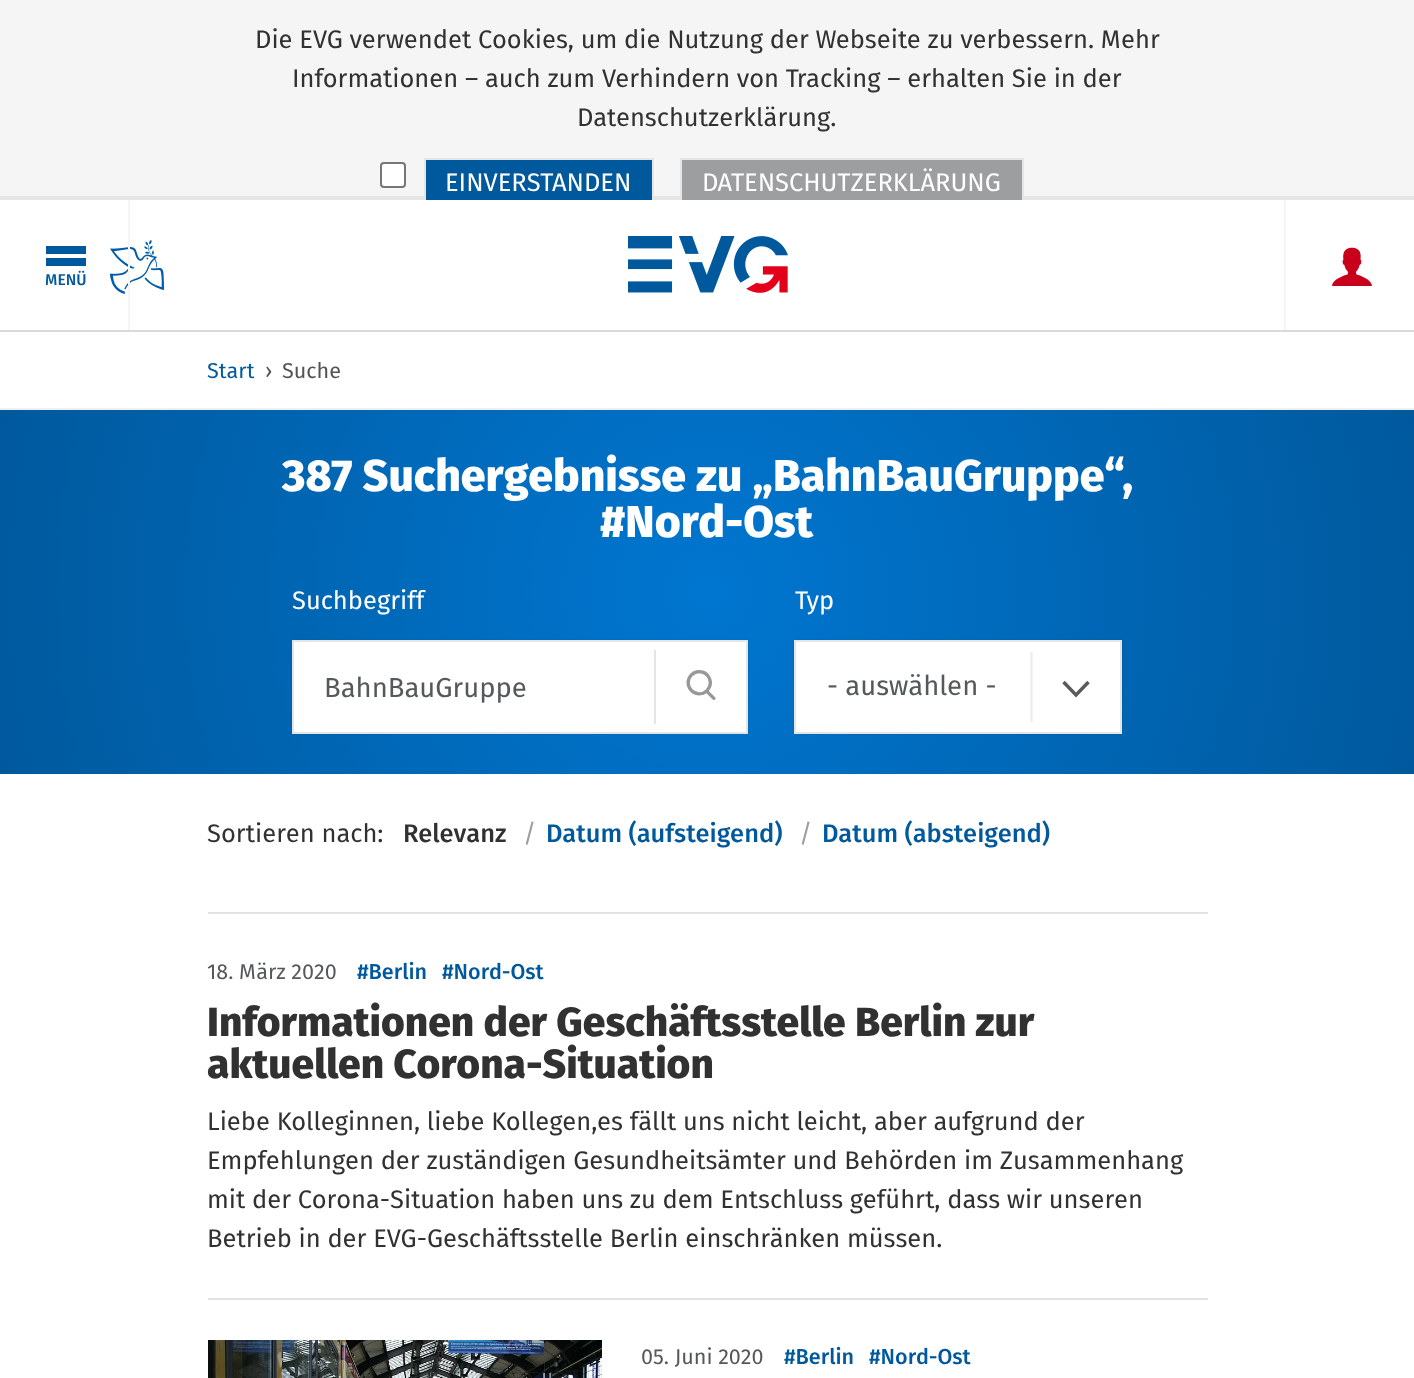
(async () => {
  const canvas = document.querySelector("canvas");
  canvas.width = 1414;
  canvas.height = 1378;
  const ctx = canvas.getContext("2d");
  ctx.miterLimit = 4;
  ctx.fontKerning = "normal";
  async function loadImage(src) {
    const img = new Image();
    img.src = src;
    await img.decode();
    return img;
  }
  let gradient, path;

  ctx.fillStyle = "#ffffff";
  ctx.fillRect(0, 0, 1414, 1378);
  ctx.fillStyle = "#f5f5f5";
  ctx.fillRect(0, 0, 1414, 196);
  ctx.fillStyle = "#e5e5e5";
  ctx.fillRect(0, 196, 1414, 4);
  ctx.fillStyle = "#ffffff";
  ctx.beginPath();
  ctx.roundRect(381, 163, 24, 24, 3);
  ctx.fill();
  ctx.strokeStyle = "#767676";
  ctx.lineWidth = 2;
  ctx.stroke();
  ctx.fillStyle = "#00599d";
  ctx.fillRect(426, 160, 226, 40);
  ctx.strokeStyle = "#e5e5e5";
  ctx.strokeRect(425, 159, 228, 48);
  ctx.fillStyle = "#9c9e9f";
  ctx.fillRect(682, 160, 340, 40);
  ctx.strokeRect(681, 159, 342, 48);
  ctx.fillStyle = "#d9d9d9";
  ctx.fillRect(0, 330, 1414, 2);
  ctx.fillStyle = "#ffffff";
  ctx.fillRect(424, 200, 600, 8);
  ctx.drawImage(await loadImage("img/2.png"), 110, 240, 54, 54);
  for (const [x, y, w, h, color] of [
    [128, 200, 2, 130, "#f5f5f5"],
    [46, 246, 40, 8, "#00599d"],
    [46, 258, 40, 8, "#00599d"],
    [1284, 200, 2, 130, "#f5f5f5"],
  ]) {
    ctx.fillStyle = color;
    ctx.fillRect(x, y, w, h);
  }
  ctx.drawImage(await loadImage("img/1.png"), 1332, 247, 40, 39);
  ctx.drawImage(await loadImage("img/3.png"), 628, 236, 160, 57);
  ctx.fillStyle = "#f0f0f1";
  ctx.fillRect(0, 408, 1414, 2);
  gradient = ctx.createRadialGradient(707, 592, 0, 707, 592, 730);
  gradient.addColorStop(0, "#0076d0");
  gradient.addColorStop(1, "#00599d");
  ctx.fillStyle = gradient;
  ctx.fillRect(0, 410, 1414, 364);
  ctx.fillStyle = "rgba(0, 0, 0, 0.1)";
  ctx.filter = "blur(1px)";
  ctx.beginPath();
  ctx.rect(292, 640, 456, 94);
  ctx.fill();
  ctx.filter = "none";
  ctx.fillStyle = "#ffffff";
  ctx.beginPath();
  ctx.rect(293, 641, 454, 92);
  ctx.fill();
  ctx.stroke();
  ctx.fillStyle = "#e5e5e5";
  ctx.fillRect(654, 650, 2, 74);
  ctx.drawImage(await loadImage("img/4.png"), 686, 670, 30, 30);
  ctx.fillStyle = "rgba(0, 0, 0, 0.1)";
  ctx.filter = "blur(1px)";
  ctx.beginPath();
  ctx.rect(794, 640, 328, 94);
  ctx.fill();
  ctx.filter = "none";
  ctx.fillStyle = "#ffffff";
  ctx.fillRect(796, 642, 324, 90);
  ctx.save();
  ctx.beginPath();
  ctx.rect(1030, 652, 60, 70);
  ctx.clip();
  path = new Path2D("M1031.5 652V722.5");
  ctx.strokeStyle = "#ebecec";
  ctx.lineWidth = 2.1;
  ctx.stroke(path);
  ctx.restore();
  path = new Path2D("M1063.5 682L1076 695L1088.5 682");
  ctx.strokeStyle = "#5a5a5a";
  ctx.lineWidth = 3.4;
  ctx.stroke(path);
  ctx.strokeStyle = "#e5e5e5";
  ctx.lineWidth = 2;
  ctx.strokeRect(795, 641, 326, 92);
  ctx.fillStyle = "#e1e2e2";
  ctx.fillRect(208, 912, 1000, 2);
  ctx.fillRect(208, 1298, 1000, 2);
  ctx.drawImage(await loadImage("img/5.png"), 208, 1340, 394, 38);
  ctx.font = "26px Fira Sans";
  ctx.fillStyle = "#313131";
  for (const [text, x, y] of [
    ["Die EVG verwendet Cookies, um die Nutzung der Webseite zu verbessern. Mehr", 255, 48],
    ["Informationen – auch zum Verhindern von Tracking – erhalten Sie in der", 292, 87],
    ["Datenschutzerklärung.", 577, 126],
  ]) {
    ctx.fillText(text, x, y);
  }
  ctx.fillStyle = "#ffffff";
  ctx.fillText("EINVERSTANDEN", 445, 191);
  ctx.fillText("DATENSCHUTZERKLÄRUNG", 702, 191);
  ctx.save();
  ctx.beginPath();
  ctx.rect(46, 246, 40, 40);
  ctx.clip();
  ctx.font = "500 16px Fira Sans";
  ctx.fillStyle = "#00599d";
  ctx.fillText("MENÜ", 45, 285);
  ctx.restore();
  ctx.font = "22px Fira Sans";
  ctx.fillStyle = "#00599d";
  ctx.fillText("Start", 207, 378);
  ctx.fillStyle = "#535353";
  ctx.fillText("›", 265, 378);
  ctx.fillText("Suche", 282, 378);
  ctx.font = "800 46px Fira Sans";
  ctx.fillStyle = "#ffffff";
  ctx.fillText("387 Suchergebnisse zu „BahnBauGruppe“,", 282, 491);
  ctx.fillText("#Nord-Ost", 600, 537);
  ctx.font = "26px Fira Sans";
  ctx.fillText("Suchbegriff", 292, 609);
  ctx.font = "28px Fira Sans";
  ctx.fillStyle = "#55595c";
  ctx.fillText("BahnBauGruppe", 324, 697);
  ctx.font = "26px Fira Sans";
  ctx.fillStyle = "#ffffff";
  ctx.fillText("Typ", 795, 609);
  ctx.font = "28px Fira Sans";
  ctx.fillStyle = "#55595c";
  ctx.fillText("- auswählen -", 827, 695);
  ctx.font = "26px Fira Sans";
  ctx.fillStyle = "#313131";
  ctx.fillText("Sortieren nach:", 207, 842);
  ctx.font = "500 26px Fira Sans";
  ctx.fillText("Relevanz", 403, 842);
  ctx.font = "26px Fira Sans";
  ctx.fillStyle = "#9c9e9f";
  ctx.fillText("/", 523, 842);
  ctx.font = "500 26px Fira Sans";
  ctx.fillStyle = "#00599d";
  ctx.fillText("Datum (aufsteigend)", 546, 842);
  ctx.font = "26px Fira Sans";
  ctx.fillStyle = "#9c9e9f";
  ctx.fillText("/", 799, 842);
  ctx.font = "500 26px Fira Sans";
  ctx.fillStyle = "#00599d";
  ctx.fillText("Datum (absteigend)", 822, 842);
  ctx.font = "22px Fira Sans";
  ctx.fillStyle = "#55595c";
  ctx.fillText("18. März 2020", 207, 979);
  ctx.font = "500 22px Fira Sans";
  ctx.fillStyle = "#00599d";
  ctx.fillText("#Berlin", 357, 979);
  ctx.fillText("#Nord-Ost", 442, 979);
  ctx.font = "800 42px Fira Sans";
  ctx.fillStyle = "#313131";
  ctx.fillText("Informationen der Geschäftsstelle Berlin zur", 207, 1036);
  ctx.fillText("aktuellen Corona-Situation", 207, 1078);
  ctx.font = "26px Fira Sans";
  for (const [text, x, y] of [
    ["Liebe Kolleginnen, liebe Kollegen,es fällt uns nicht leicht, aber aufgrund der", 207, 1130],
    ["Empfehlungen der zuständigen Gesundheitsämter und Behörden im Zusammenhang", 207, 1169],
    ["mit der Corona-Situation haben uns zu dem Entschluss geführt, dass wir unseren", 207, 1208],
    ["Betrieb in der EVG-Geschäftsstelle Berlin einschränken müssen.", 207, 1247],
  ]) {
    ctx.fillText(text, x, y);
  }
  ctx.font = "22px Fira Sans";
  ctx.fillStyle = "#55595c";
  ctx.fillText("05. Juni 2020", 641, 1364);
  ctx.font = "500 22px Fira Sans";
  ctx.fillStyle = "#00599d";
  ctx.fillText("#Berlin", 784, 1364);
  ctx.fillText("#Nord-Ost", 869, 1364);
})();
